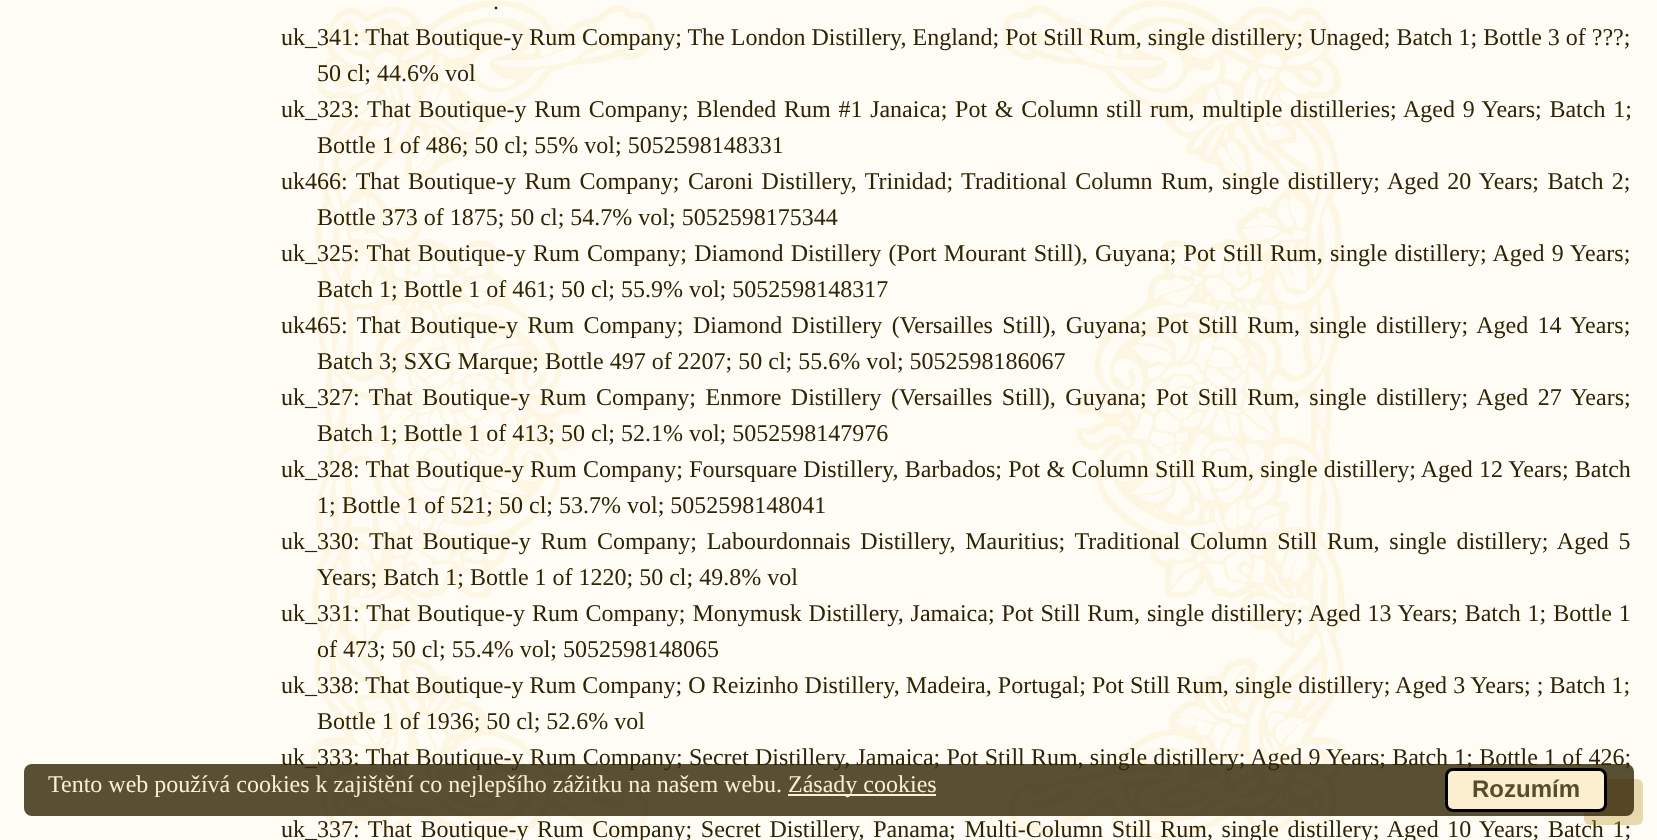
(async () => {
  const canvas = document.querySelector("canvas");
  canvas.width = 1657;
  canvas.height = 840;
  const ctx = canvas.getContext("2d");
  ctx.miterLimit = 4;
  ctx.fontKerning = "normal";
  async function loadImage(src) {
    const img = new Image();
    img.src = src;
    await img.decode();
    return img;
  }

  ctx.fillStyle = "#fefcf5";
  ctx.fillRect(0, 0, 1657, 840);
  ctx.drawImage(await loadImage("img/1.png"), 311, 0, 1036, 840);
  ctx.font = "24px Liberation Serif";
  ctx.fillStyle = "#302303";
  for (const [text, x, y] of [
    [".", 493, 9],
    ["uk_341: That Boutique-y Rum Company; The London Distillery, England; Pot Still Rum, single distillery; Unaged; Batch 1; Bottle 3 of ???;", 281, 45],
    ["50 cl; 44.6% vol", 317, 81],
    ["uk_323", 281, 117],
  ]) {
    ctx.fillText(text, x, y);
  }
  ctx.wordSpacing = "1.7px";
  ctx.fillText(": That Boutique-y Rum Company; Blended Rum #1 Janaica; Pot & Column still rum, multiple distilleries; Aged 9 Years; Batch 1;", 353, 117);
  ctx.wordSpacing = "0px";
  ctx.fillText("Bottle 1 of 486; 50 cl; 55% vol; 5052598148331", 317, 153);
  ctx.fillText("uk466", 281, 189);
  ctx.wordSpacing = "2.4px";
  ctx.fillText(": That Boutique-y Rum Company; Caroni Distillery, Trinidad; Traditional Column Rum, single distillery; Aged 20 Years; Batch 2;", 341, 189);
  ctx.wordSpacing = "0px";
  ctx.fillText("Bottle 373 of 1875; 50 cl; 54.7% vol; 5052598175344", 317, 225);
  ctx.fillText("uk_325", 281, 261);
  ctx.wordSpacing = "1.25px";
  ctx.fillText(": That Boutique-y Rum Company; Diamond Distillery (Port Mourant Still), Guyana; Pot Still Rum, single distillery; Aged 9 Years;", 353, 261);
  ctx.wordSpacing = "0px";
  ctx.fillText("Batch 1; Bottle 1 of 461; 50 cl; 55.9% vol; 5052598148317", 317, 297);
  ctx.fillText("uk465", 281, 333);
  ctx.wordSpacing = "3.4px";
  ctx.fillText(": That Boutique-y Rum Company; Diamond Distillery (Versailles Still), Guyana; Pot Still Rum, single distillery; Aged 14 Years;", 341, 333);
  ctx.wordSpacing = "0px";
  ctx.fillText("Batch 3; SXG Marque; Bottle 497 of 2207; 50 cl; 55.6% vol; 5052598186067", 317, 369);
  ctx.fillText("uk_327", 281, 405);
  ctx.wordSpacing = "3.5px";
  ctx.fillText(": That Boutique-y Rum Company; Enmore Distillery (Versailles Still), Guyana; Pot Still Rum, single distillery; Aged 27 Years;", 353, 405);
  ctx.wordSpacing = "0px";
  ctx.fillText("Batch 1; Bottle 1 of 413; 50 cl; 52.1% vol; 5052598147976", 317, 441);
  ctx.fillText("uk_328", 281, 477);
  ctx.wordSpacing = "0.25px";
  ctx.fillText(": That Boutique-y Rum Company; Foursquare Distillery, Barbados; Pot & Column Still Rum, single distillery; Aged 12 Years; Batch", 353, 477);
  ctx.wordSpacing = "0px";
  ctx.fillText("1; Bottle 1 of 521; 50 cl; 53.7% vol; 5052598148041", 317, 513);
  ctx.fillText("uk_330", 281, 549);
  ctx.wordSpacing = "3.75px";
  ctx.fillText(": That Boutique-y Rum Company; Labourdonnais Distillery, Mauritius; Traditional Column Still Rum, single distillery; Aged 5", 353, 549);
  ctx.wordSpacing = "0px";
  ctx.fillText("Years; Batch 1; Bottle 1 of 1220; 50 cl; 49.8% vol", 317, 585);
  ctx.fillText("uk_331", 281, 621);
  ctx.wordSpacing = "0.9px";
  ctx.fillText(": That Boutique-y Rum Company; Monymusk Distillery, Jamaica; Pot Still Rum, single distillery; Aged 13 Years; Batch 1; Bottle 1", 353, 621);
  ctx.wordSpacing = "0px";
  ctx.fillText("of 473; 50 cl; 55.4% vol; 5052598148065", 317, 657);
  ctx.fillText("uk_338", 281, 693);
  ctx.wordSpacing = "0.1px";
  ctx.fillText(": That Boutique-y Rum Company; O Reizinho Distillery, Madeira, Portugal; Pot Still Rum, single distillery; Aged 3 Years; ; Batch 1;", 353, 693);
  ctx.wordSpacing = "0px";
  ctx.fillText("Bottle 1 of 1936; 50 cl; 52.6% vol", 317, 729);
  ctx.fillText("uk_333", 281, 765);
  ctx.wordSpacing = "0.2px";
  ctx.fillText(": That Boutique-y Rum Company; Secret Distillery, Jamaica; Pot Still Rum, single distillery; Aged 9 Years; Batch 1; Bottle 1 of 426;", 353, 765);
  ctx.wordSpacing = "0px";
  ctx.fillText("uk_337", 281, 837);
  ctx.wordSpacing = "2.6px";
  ctx.fillText(": That Boutique-y Rum Company; Secret Distillery, Panama; Multi-Column Still Rum, single distillery; Aged 10 Years; Batch 1;", 353, 837);
  ctx.fillStyle = "rgba(183, 134, 11, 0.3)";
  ctx.beginPath();
  ctx.roundRect(1584, 779, 59, 46, 6);
  ctx.fill();
  ctx.fillStyle = "rgba(48, 35, 3, 0.8)";
  ctx.beginPath();
  ctx.roundRect(24, 764, 1610, 52, 8);
  ctx.fill();
  ctx.wordSpacing = "0px";
  ctx.fillStyle = "#fcefcf";
  ctx.fillText("Tento web používá cookies k zajištění co nejlepšího zážitku na našem webu.", 48, 792);
  ctx.fillRect(788, 794, 148, 2);
  ctx.fillText("Zásady cookies", 788, 792);
  ctx.beginPath();
  ctx.roundRect(1446.5, 769.5, 159, 41, 6.5);
  ctx.fill();
  ctx.strokeStyle = "#000000";
  ctx.lineWidth = 3;
  ctx.stroke();
  ctx.font = "bold 24px Liberation Sans";
  ctx.fillStyle = "#594c2c";
  ctx.fillText("Rozumím", 1472, 797);
})();
